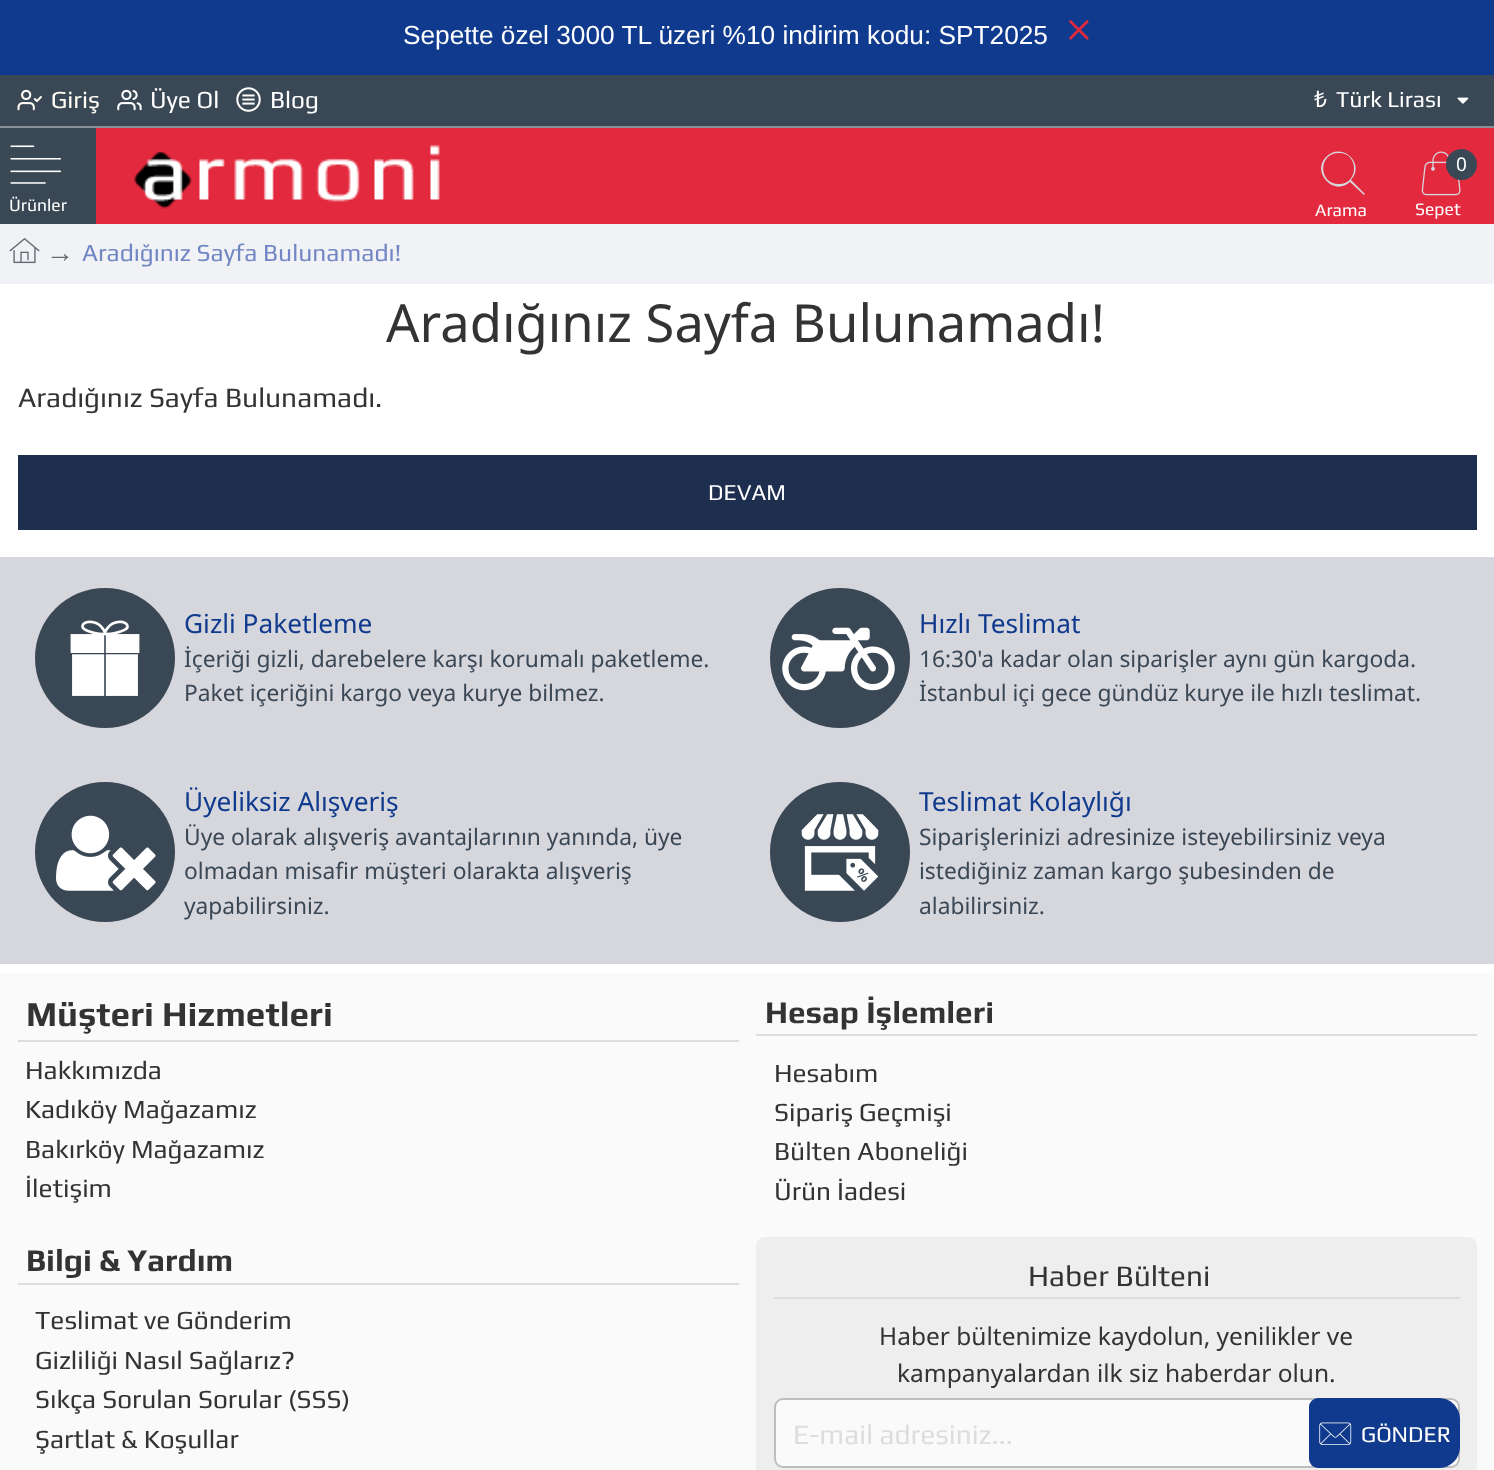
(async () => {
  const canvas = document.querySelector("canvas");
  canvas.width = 1494;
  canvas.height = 1470;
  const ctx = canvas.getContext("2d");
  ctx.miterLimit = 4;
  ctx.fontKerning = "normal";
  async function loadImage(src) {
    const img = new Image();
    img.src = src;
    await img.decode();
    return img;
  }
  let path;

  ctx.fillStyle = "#ffffff";
  ctx.fillRect(0, 0, 1494, 1470);
  ctx.fillStyle = "#0f3a8d";
  ctx.fillRect(0, 0, 1494, 75);
  ctx.drawImage(await loadImage("img/1.png"), 1069, 20, 20, 20);
  ctx.fillStyle = "#3a4754";
  ctx.fillRect(0, 75, 1494, 51);
  ctx.fillStyle = "#8b9198";
  ctx.fillRect(0, 126, 1494, 2);
  ctx.drawImage(await loadImage("img/2.png"), 17, 89, 25, 22);
  ctx.drawImage(await loadImage("img/3.png"), 117, 89, 25, 22);
  ctx.drawImage(await loadImage("img/4.png"), 236, 87, 25, 25);
  ctx.drawImage(await loadImage("img/5.png"), 1457, 97, 12, 7);
  ctx.fillStyle = "#e2293d";
  ctx.fillRect(96, 128, 1398, 96);
  ctx.drawImage(await loadImage("img/6.png"), 134, 144, 306, 65);
  ctx.fillStyle = "#3a4754";
  ctx.fillRect(0, 128, 96, 96);
  ctx.drawImage(await loadImage("img/7.png"), 10, 145, 52, 39);
  ctx.fillStyle = "#d6d6dd";
  path = new Path2D("M1350 182L1364 195L1365 194L1351 180C1366 164 1342 141 1326 157C1311 172 1334 197 1350 182ZM1339 153C1359 153 1359 184 1339 184C1318 184 1318 153 1339 153Z");
  ctx.fill(path);
  ctx.drawImage(await loadImage("img/8.png"), 1421, 151, 40, 45);
  ctx.fillStyle = "#3a4754";
  ctx.beginPath();
  ctx.arc(1461.5, 164.5, 15.5, 0, Math.PI * 2);
  ctx.fill();
  ctx.fillStyle = "#f0f2f5";
  ctx.fillRect(0, 224, 1494, 60);
  ctx.drawImage(await loadImage("img/9.png"), 9, 238, 31, 26);
  ctx.fillStyle = "#1e2e4e";
  ctx.fillRect(18, 455, 1459, 75);
  ctx.fillStyle = "#d6d6dd";
  ctx.fillRect(0, 557, 1494, 407);
  ctx.fillStyle = "#3a4754";
  ctx.beginPath();
  ctx.arc(105, 658, 70, 0, Math.PI * 2);
  ctx.fill();
  ctx.drawImage(await loadImage("img/10.png"), 70, 620, 70, 76);
  ctx.beginPath();
  ctx.arc(840, 658, 70, 0, Math.PI * 2);
  ctx.fill();
  ctx.drawImage(await loadImage("img/11.png"), 782, 627, 113, 64);
  ctx.beginPath();
  ctx.arc(105, 852, 70, 0, Math.PI * 2);
  ctx.fill();
  ctx.drawImage(await loadImage("img/12.png"), 56, 815, 100, 76);
  ctx.beginPath();
  ctx.arc(840, 852, 70, 0, Math.PI * 2);
  ctx.fill();
  ctx.drawImage(await loadImage("img/13.png"), 801, 814, 78, 77);
  for (const [x, y, w, h, color] of [
    [0, 973, 1494, 497, "#fafafa"],
    [18, 1040, 721, 2, "#dddddd"],
    [756, 1034, 721, 2, "#dddddd"],
    [18, 1283, 721, 2, "#dddddd"],
  ]) {
    ctx.fillStyle = color;
    ctx.fillRect(x, y, w, h);
  }
  ctx.fillStyle = "#eeeeee";
  ctx.beginPath();
  ctx.roundRect(756, 1237, 721, 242, 9);
  ctx.fill();
  ctx.fillStyle = "#dddddd";
  ctx.fillRect(774, 1297, 686, 2);
  ctx.fillStyle = "#fafafa";
  ctx.beginPath();
  ctx.roundRect(775, 1399, 684, 68, 8);
  ctx.fill();
  ctx.strokeStyle = "#bebebe";
  ctx.lineWidth = 2;
  ctx.stroke();
  ctx.fillStyle = "#0f3a8d";
  ctx.beginPath();
  ctx.roundRect(1309, 1398, 151, 70, [9, 21, 21, 9]);
  ctx.fill();
  ctx.drawImage(await loadImage("img/14.png"), 1319, 1422, 33, 23);
  ctx.font = "26.25px Liberation Sans";
  ctx.fillStyle = "#ffffff";
  ctx.fillText("Sepette özel 3000 TL üzeri %10 indirim kodu: SPT2025", 403, 44);
  ctx.font = "24.5px Play";
  ctx.fillStyle = "#fffdf5";
  ctx.fillText("Giriş", 51, 108);
  ctx.fillStyle = "#ffffff";
  ctx.fillText("Üye Ol", 150, 108);
  ctx.fillText("Blog", 270, 108);
  ctx.font = "22.75px 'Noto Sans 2'";
  ctx.fillText("₺", 1314, 107);
  ctx.font = "22.75px Play";
  ctx.fillText("Türk Lirası", 1336, 107);
  ctx.font = "17.5px Play";
  ctx.fillText("Ürünler", 9, 211);
  ctx.fillText("Arama", 1315, 216);
  ctx.font = "19px Noto Sans";
  ctx.fillText("0", 1456, 171);
  ctx.font = "17.5px Play";
  ctx.fillText("Sepet", 1415, 215);
  ctx.font = "28px Liberation Serif";
  ctx.fillStyle = "#696973";
  ctx.fillText("→", 46, 262);
  ctx.font = "24.5px Play";
  ctx.fillStyle = "#7186c3";
  ctx.fillText("Aradığınız Sayfa Bulunamadı!", 82, 261);
  ctx.font = "52.5px Noto Sans";
  ctx.fillStyle = "#333333";
  ctx.fillText("Aradığınız Sayfa Bulunamadı!", 386, 342);
  ctx.font = "28px Play";
  ctx.fillText("Aradığınız Sayfa Bulunamadı.", 18, 407);
  ctx.font = "22.75px Play";
  ctx.fillStyle = "#ffffff";
  ctx.fillText("DEVAM", 708, 500);
  ctx.font = "26.25px Noto Sans";
  ctx.fillStyle = "#0f3a8d";
  ctx.fillText("Gizli Paketleme", 184, 633);
  ctx.font = "22.75px Noto Sans";
  ctx.fillStyle = "#3a4754";
  ctx.fillText("İçeriği gizli, darebelere karşı korumalı paketleme.", 184, 667);
  ctx.fillText("Paket içeriğini kargo veya kurye bilmez.", 184, 701);
  ctx.font = "26.25px Noto Sans";
  ctx.fillStyle = "#0f3a8d";
  ctx.fillText("Hızlı Teslimat", 919, 633);
  ctx.font = "22.75px Noto Sans";
  ctx.fillStyle = "#3a4754";
  ctx.fillText("16:30'a kadar olan siparişler aynı gün kargoda.", 919, 667);
  ctx.fillText("İstanbul içi gece gündüz kurye ile hızlı teslimat.", 919, 701);
  ctx.font = "26.25px Noto Sans";
  ctx.fillStyle = "#0f3a8d";
  ctx.fillText("Üyeliksiz Alışveriş", 184, 811);
  ctx.font = "22.75px Noto Sans";
  ctx.fillStyle = "#3a4754";
  for (const [text, x, y] of [
    ["Üye olarak alışveriş avantajlarının yanında, üye", 184, 845],
    ["olmadan misafir müşteri olarakta alışveriş", 184, 879],
    ["yapabilirsiniz.", 184, 914],
  ]) {
    ctx.fillText(text, x, y);
  }
  ctx.font = "26.25px Noto Sans";
  ctx.fillStyle = "#0f3a8d";
  ctx.fillText("Teslimat Kolaylığı", 919, 811);
  ctx.font = "22.75px Noto Sans";
  ctx.fillStyle = "#3a4754";
  for (const [text, x, y] of [
    ["Siparişlerinizi adresinize isteyebilirsiniz veya", 919, 845],
    ["istediğiniz zaman kargo şubesinden de", 919, 879],
    ["alabilirsiniz.", 919, 914],
  ]) {
    ctx.fillText(text, x, y);
  }
  ctx.font = "bold 35px Play";
  ctx.fillStyle = "#333333";
  ctx.fillText("Müşteri Hizmetleri", 26, 1026);
  ctx.font = "26.25px Play";
  for (const [text, x, y] of [
    ["Hakkımızda", 25, 1079],
    ["Kadıköy Mağazamız", 25, 1118],
    ["Bakırköy Mağazamız", 25, 1158],
    ["İletişim", 25, 1197],
  ]) {
    ctx.fillText(text, x, y);
  }
  ctx.font = "bold 31.5px Play";
  ctx.fillText("Hesap İşlemleri", 765, 1023);
  ctx.font = "26.25px Play";
  for (const [text, x, y] of [
    ["Hesabım", 774, 1082],
    ["Sipariş Geçmişi", 774, 1121],
    ["Bülten Aboneliği", 774, 1160],
    ["Ürün İadesi", 774, 1200],
  ]) {
    ctx.fillText(text, x, y);
  }
  ctx.font = "bold 31.5px Play";
  ctx.fillText("Bilgi & Yardım", 26, 1271);
  ctx.font = "26.25px Play";
  for (const [text, x, y] of [
    ["Teslimat ve Gönderim", 35, 1329],
    ["Gizliliği Nasıl Sağlarız?", 35, 1369],
    ["Sıkça Sorulan Sorular (SSS)", 35, 1408],
    ["Şartlat & Koşullar", 35, 1448],
  ]) {
    ctx.fillText(text, x, y);
  }
  ctx.font = "29.75px Play";
  ctx.fillText("Haber Bülteni", 1028, 1286);
  ctx.font = "24.5px Noto Sans";
  ctx.fillText("Haber bültenimize kaydolun, yenilikler ve", 879, 1345);
  ctx.fillText("kampanyalardan ilk siz haberdar olun.", 897, 1382);
  ctx.font = "28px Play";
  ctx.fillStyle = "#dddddd";
  ctx.fillText("E-mail adresiniz...", 793, 1444);
  ctx.font = "22.75px Play";
  ctx.fillStyle = "#ffffff";
  ctx.fillText("GÖNDER", 1361, 1442);
})();
